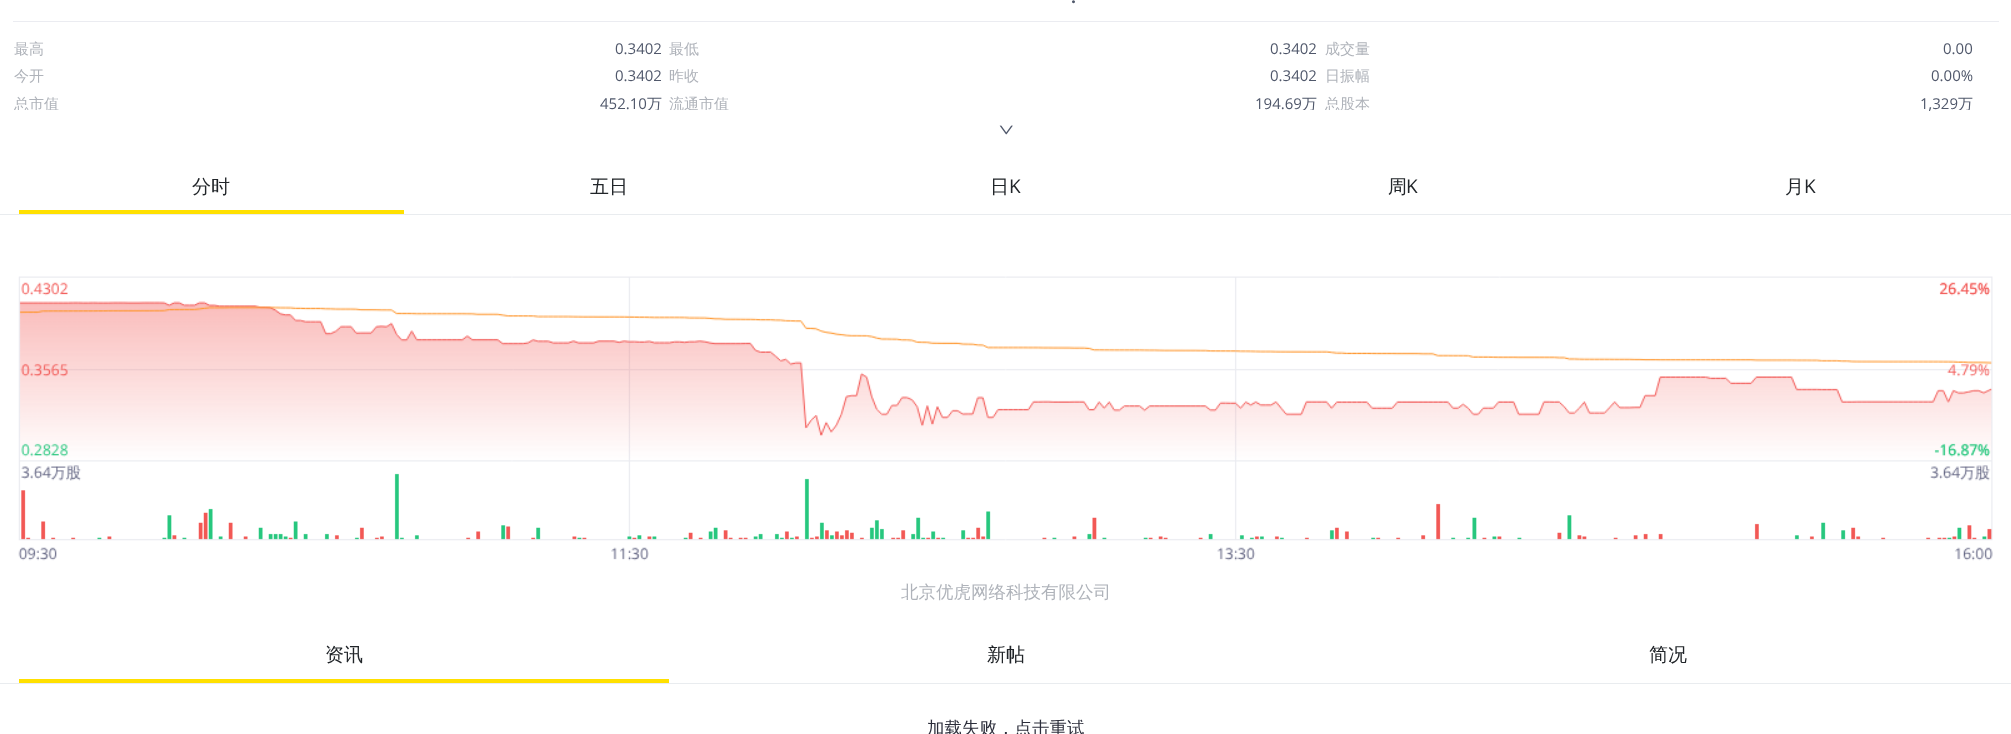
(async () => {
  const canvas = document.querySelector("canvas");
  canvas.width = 2011;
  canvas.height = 734;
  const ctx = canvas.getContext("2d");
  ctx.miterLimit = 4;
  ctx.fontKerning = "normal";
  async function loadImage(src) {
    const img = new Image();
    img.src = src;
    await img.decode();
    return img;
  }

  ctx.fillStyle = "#ffffff";
  ctx.fillRect(0, 0, 2011, 734);
  ctx.fillStyle = "#ebecf1";
  ctx.fillRect(13, 21, 1986, 1);
  ctx.drawImage(await loadImage("img/1.png"), 999, 125, 14, 10);
  ctx.fillStyle = "#e9ecef";
  ctx.fillRect(0, 214, 2011, 1);
  ctx.fillStyle = "#ffe000";
  ctx.fillRect(19, 210, 385, 4);
  ctx.drawImage(await loadImage("img/2.png"), 18, 276, 1975, 285);
  ctx.fillStyle = "#e9ecef";
  ctx.fillRect(0, 683, 2011, 1);
  ctx.fillStyle = "#ffe000";
  ctx.fillRect(19, 679, 650, 4);
  ctx.font = "bold 17.5px Open Sans";
  ctx.fillStyle = "#50586b";
  ctx.fillText(".", 1071, 3);
  ctx.font = "500 15px WenQuanYi Zen Hei";
  ctx.fillStyle = "#afb3ba";
  ctx.fillText("最高", 14, 54);
  ctx.font = "15px Open Sans";
  ctx.fillStyle = "#50586b";
  ctx.fillText("0.3402", 615, 54);
  ctx.font = "500 15px WenQuanYi Zen Hei";
  ctx.fillStyle = "#afb3ba";
  ctx.fillText("最低", 669, 54);
  ctx.font = "15px Open Sans";
  ctx.fillStyle = "#50586b";
  ctx.fillText("0.3402", 1270, 54);
  ctx.font = "500 15px WenQuanYi Zen Hei";
  ctx.fillStyle = "#afb3ba";
  ctx.fillText("成交量", 1325, 54);
  ctx.font = "15px Open Sans";
  ctx.fillStyle = "#50586b";
  ctx.fillText("0.00", 1943, 54);
  ctx.font = "500 15px WenQuanYi Zen Hei";
  ctx.fillStyle = "#afb3ba";
  ctx.fillText("今开", 14, 81);
  ctx.font = "15px Open Sans";
  ctx.fillStyle = "#50586b";
  ctx.fillText("0.3402", 615, 81);
  ctx.font = "500 15px WenQuanYi Zen Hei";
  ctx.fillStyle = "#afb3ba";
  ctx.fillText("昨收", 669, 81);
  ctx.font = "15px Open Sans";
  ctx.fillStyle = "#50586b";
  ctx.fillText("0.3402", 1270, 81);
  ctx.font = "500 15px WenQuanYi Zen Hei";
  ctx.fillStyle = "#afb3ba";
  ctx.fillText("日振幅", 1325, 81);
  ctx.font = "15px Open Sans";
  ctx.fillStyle = "#50586b";
  ctx.fillText("0.00%", 1931, 81);
  ctx.save();
  ctx.beginPath();
  ctx.rect(14, 91, 45, 19);
  ctx.clip();
  ctx.font = "500 15px WenQuanYi Zen Hei";
  ctx.fillStyle = "#afb3ba";
  ctx.fillText("总市值", 14, 109);
  ctx.restore();
  ctx.fillText("452.10", 600, 109);
  ctx.save();
  ctx.beginPath();
  ctx.rect(13, 35, 1986, 75);
  ctx.clip();
  ctx.font = "500 15px WenQuanYi Zen Hei";
  ctx.fillText("万", 647, 109);
  ctx.restore();
  ctx.save();
  ctx.beginPath();
  ctx.rect(669, 91, 60, 19);
  ctx.clip();
  ctx.font = "500 15px WenQuanYi Zen Hei";
  ctx.fillStyle = "#afb3ba";
  ctx.fillText("流通市值", 669, 109);
  ctx.restore();
  ctx.fillText("194.69", 1255, 109);
  ctx.save();
  ctx.beginPath();
  ctx.rect(13, 35, 1986, 75);
  ctx.clip();
  ctx.font = "500 15px WenQuanYi Zen Hei";
  ctx.fillText("万", 1302, 109);
  ctx.restore();
  ctx.save();
  ctx.beginPath();
  ctx.rect(1325, 91, 45, 19);
  ctx.clip();
  ctx.font = "500 15px WenQuanYi Zen Hei";
  ctx.fillStyle = "#afb3ba";
  ctx.fillText("总股本", 1325, 109);
  ctx.restore();
  ctx.fillText("1,329", 1920, 109);
  ctx.save();
  ctx.beginPath();
  ctx.rect(13, 35, 1986, 75);
  ctx.clip();
  ctx.font = "500 15px WenQuanYi Zen Hei";
  ctx.fillText("万", 1958, 109);
  ctx.restore();
  ctx.font = "500 19px WenQuanYi Zen Hei";
  ctx.fillStyle = "#212529";
  for (const [text, x, y] of [
    ["分时", 192, 193],
    ["五日", 590, 193],
    ["日", 990, 193],
  ]) {
    ctx.fillText(text, x, y);
  }
  ctx.font = "19px Open Sans";
  ctx.fillText("K", 1009, 193);
  ctx.font = "500 19px WenQuanYi Zen Hei";
  ctx.fillText("周", 1388, 193);
  ctx.font = "19px Open Sans";
  ctx.fillText("K", 1406, 193);
  ctx.font = "500 19px WenQuanYi Zen Hei";
  ctx.fillText("月", 1785, 193);
  ctx.font = "19px Open Sans";
  ctx.fillText("K", 1804, 193);
  ctx.font = "500 17.5px WenQuanYi Zen Hei";
  ctx.fillStyle = "#afb3ba";
  ctx.fillText("北京优虎网络科技有限公司", 901, 598);
  ctx.font = "500 19px WenQuanYi Zen Hei";
  ctx.fillStyle = "#212529";
  for (const [text, x, y] of [
    ["资讯", 325, 661],
    ["新帖", 987, 661],
    ["简况", 1649, 661],
  ]) {
    ctx.fillText(text, x, y);
  }
  ctx.font = "500 17.5px WenQuanYi Zen Hei";
  ctx.fillStyle = "#2c2e3b";
  ctx.fillText("加载失败，点击重试", 927, 734);
})();
